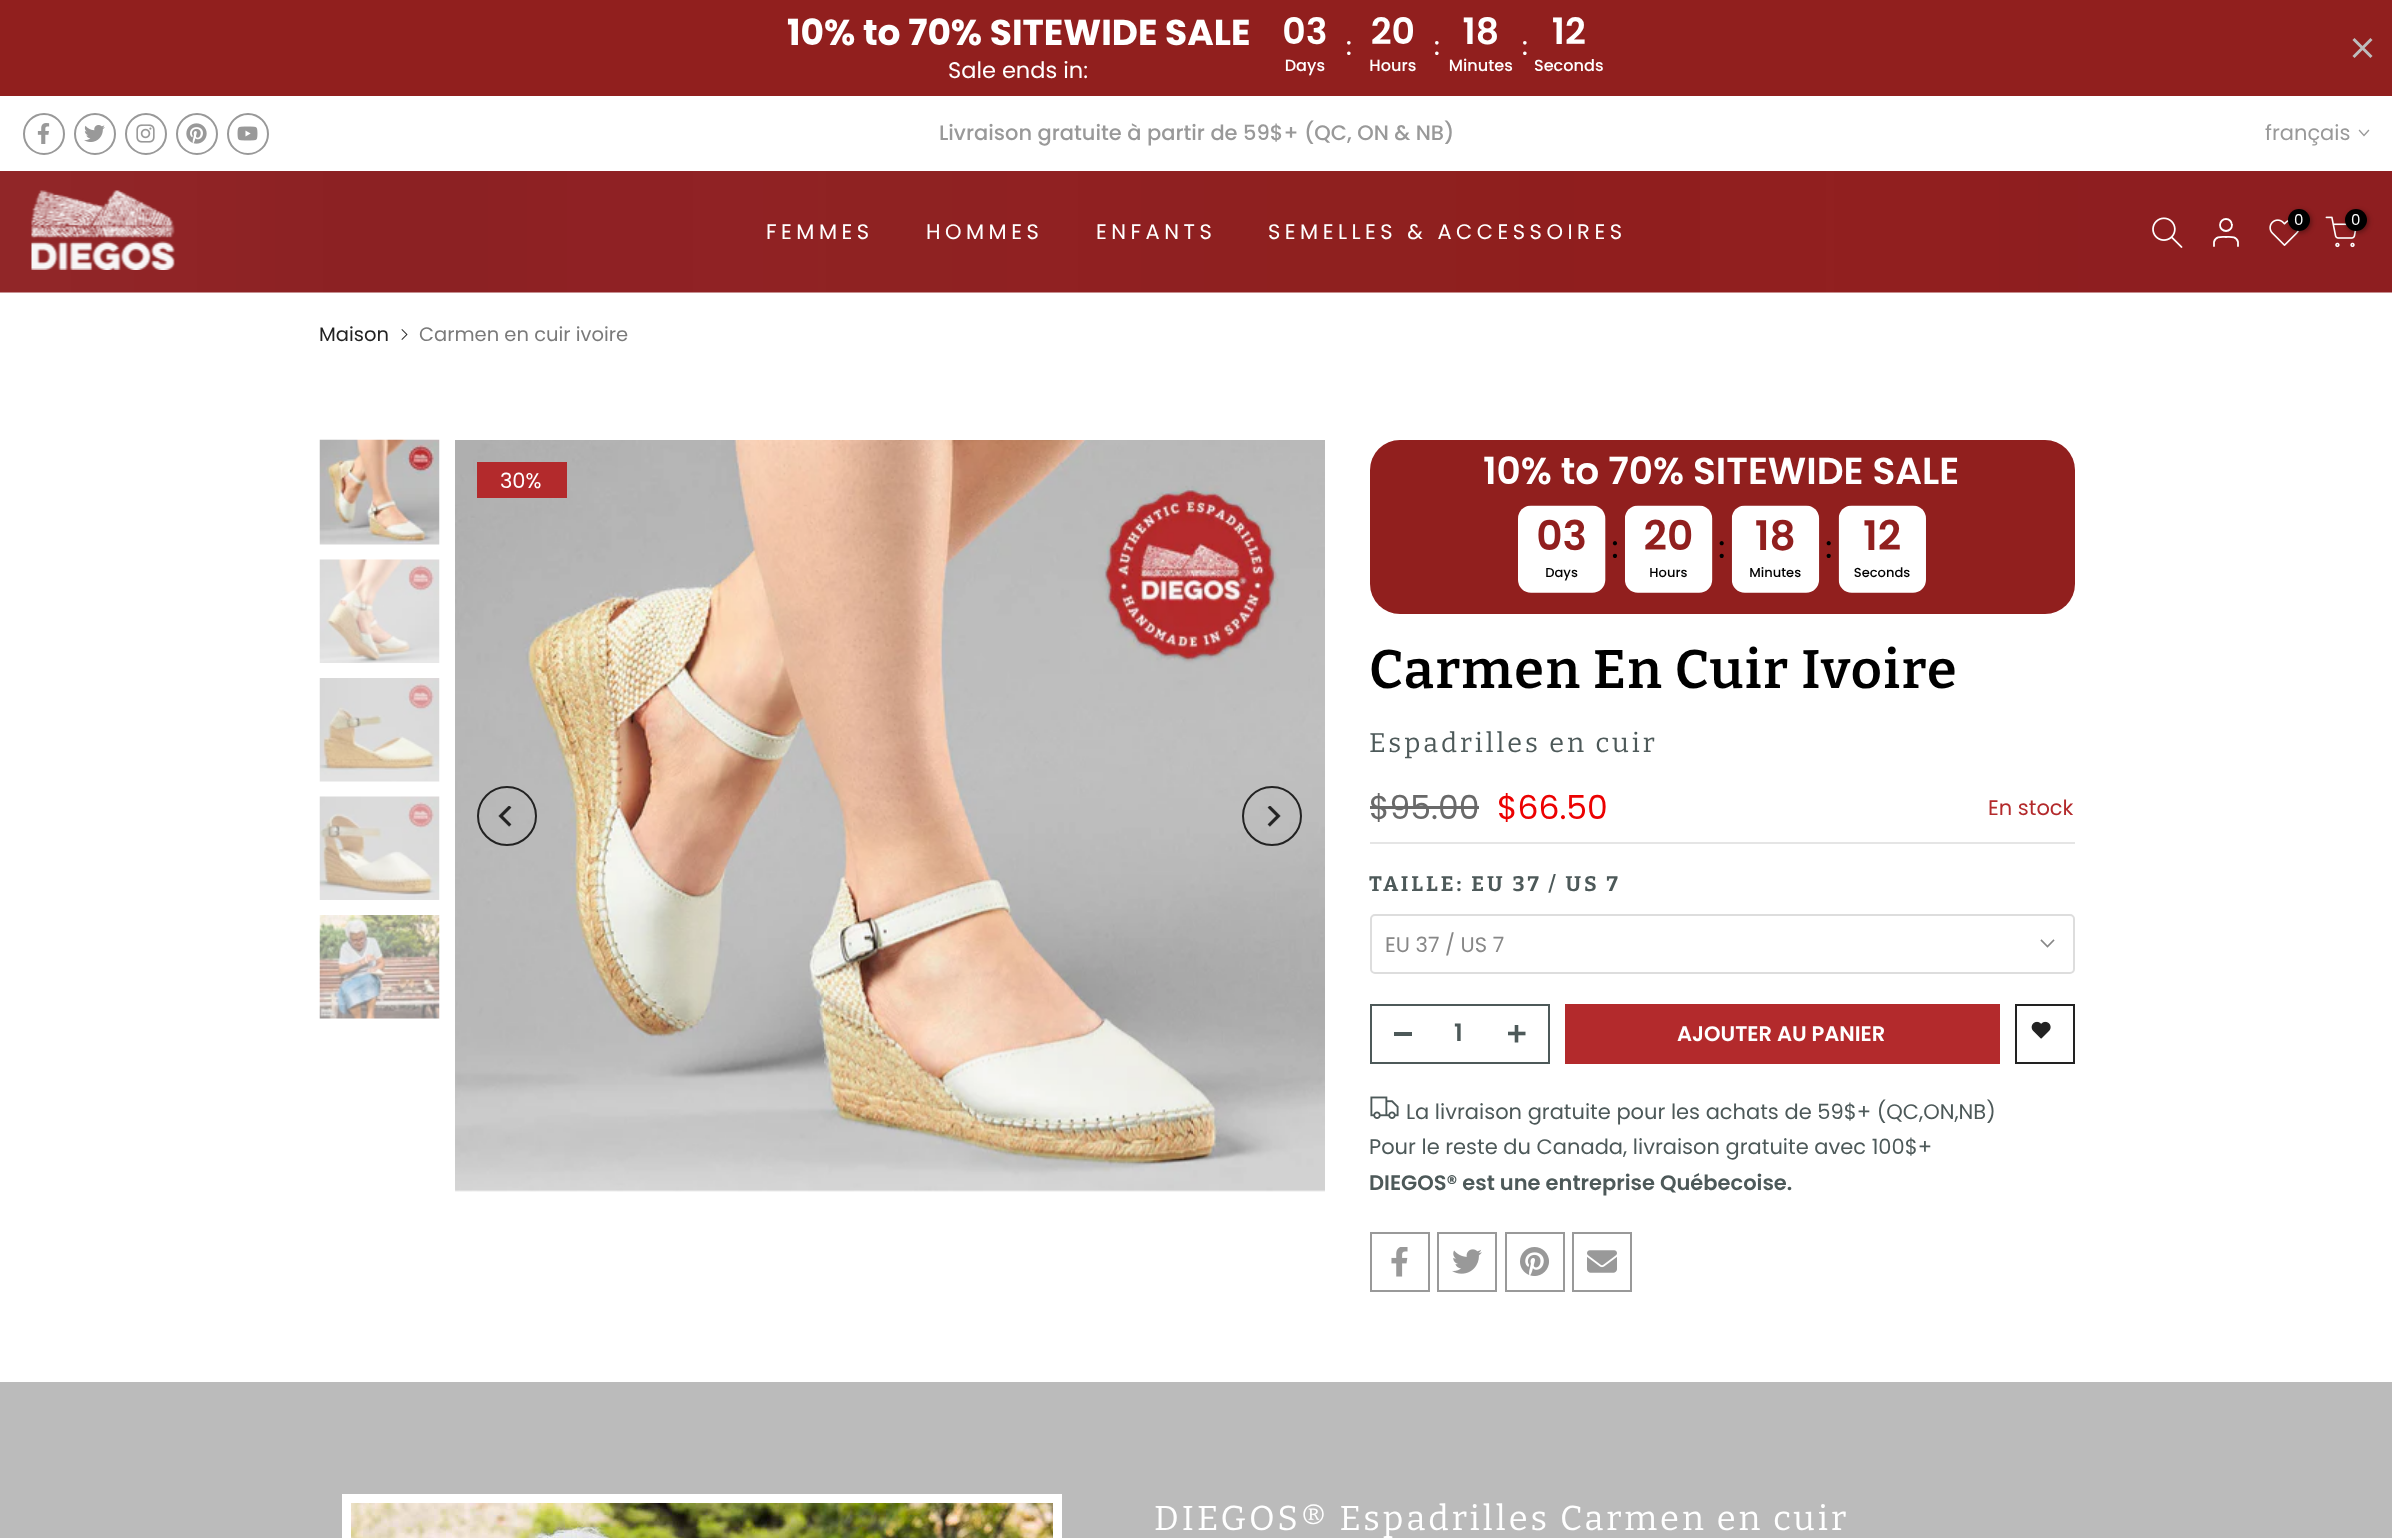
(async () => {
  const canvas = document.querySelector("canvas");
  canvas.width = 2392;
  canvas.height = 1538;
  const ctx = canvas.getContext("2d");
  ctx.miterLimit = 4;
  ctx.fontKerning = "normal";
  async function loadImage(src) {
    const img = new Image();
    img.src = src;
    await img.decode();
    return img;
  }
  let path;

  ctx.fillStyle = "#ffffff";
  ctx.fillRect(0, 0, 2392, 1538);
  ctx.fillStyle = "#911f1e";
  ctx.fillRect(0, 0, 2392, 96);
  ctx.drawImage(await loadImage("img/1.png"), 1284, 17, 319, 59);
  path = new Path2D("M2371.5 39L2353.5 57M2371.5 57L2353.5 39");
  ctx.strokeStyle = "#bdbdbd";
  ctx.lineWidth = 3;
  ctx.stroke(path);
  ctx.beginPath();
  ctx.arc(44, 134, 20, 0, Math.PI * 2);
  ctx.strokeStyle = "#999999";
  ctx.lineWidth = 2;
  ctx.stroke();
  ctx.drawImage(await loadImage("img/2.png"), 37, 123, 13, 21);
  ctx.beginPath();
  ctx.arc(95, 134, 20, 0, Math.PI * 2);
  ctx.stroke();
  ctx.drawImage(await loadImage("img/3.png"), 84, 125, 21, 17);
  ctx.beginPath();
  ctx.arc(146, 134, 20, 0, Math.PI * 2);
  ctx.stroke();
  ctx.drawImage(await loadImage("img/4.png"), 136, 124, 19, 19);
  ctx.beginPath();
  ctx.arc(197, 134, 20, 0, Math.PI * 2);
  ctx.stroke();
  ctx.drawImage(await loadImage("img/5.png"), 186, 123, 21, 21);
  ctx.beginPath();
  ctx.arc(248, 134, 20, 0, Math.PI * 2);
  ctx.stroke();
  ctx.drawImage(await loadImage("img/6.png"), 237, 126, 21, 15);
  path = new Path2D("M2368.5 130.5L2364 135.5L2359.5 130.5");
  ctx.lineWidth = 1.3;
  ctx.lineCap = "square";
  ctx.stroke(path);
  ctx.drawImage(await loadImage("img/7.png"), 0, 171, 2392, 122);
  ctx.drawImage(await loadImage("img/8.png"), 31, 190, 144, 80);
  ctx.drawImage(await loadImage("img/9.png"), 2152, 217, 31, 31);
  ctx.beginPath();
  ctx.arc(2226, 225, 6, 0, Math.PI * 2);
  ctx.strokeStyle = "#ffffff";
  ctx.lineWidth = 1.8;
  ctx.stroke();
  path = new Path2D("M2238 246V242C2236.5 236 2230.5 237 2226 237C2221.5 237 2215.5 236 2214 242V246");
  ctx.lineCap = "round";
  ctx.lineJoin = "round";
  ctx.stroke(path);
  ctx.drawImage(await loadImage("img/10.png"), 2269, 219, 31, 27);
  ctx.fillStyle = "rgba(0, 0, 0, 0.3)";
  ctx.filter = "blur(2px)";
  ctx.beginPath();
  ctx.roundRect(2289, 210, 23, 23, 11.5);
  ctx.fill();
  ctx.filter = "none";
  ctx.fillStyle = "#000000";
  ctx.beginPath();
  ctx.arc(2299, 220, 11, 0, Math.PI * 2);
  ctx.fill();
  ctx.drawImage(await loadImage("img/11.png"), 2325, 216, 32, 32);
  ctx.fillStyle = "rgba(0, 0, 0, 0.3)";
  ctx.filter = "blur(2px)";
  ctx.beginPath();
  ctx.roundRect(2346, 210, 23, 23, 11.5);
  ctx.fill();
  ctx.filter = "none";
  ctx.fillStyle = "#000000";
  ctx.beginPath();
  ctx.arc(2356, 220, 11, 0, Math.PI * 2);
  ctx.fill();
  ctx.drawImage(await loadImage("img/12.png"), 401, 329, 7, 11);
  ctx.drawImage(await loadImage("img/13.png"), 319, 439, 121, 106);
  ctx.drawImage(await loadImage("img/14.png"), 319, 559, 121, 104);
  ctx.drawImage(await loadImage("img/15.png"), 319, 678, 121, 104);
  ctx.drawImage(await loadImage("img/16.png"), 319, 796, 121, 104);
  ctx.drawImage(await loadImage("img/17.png"), 319, 915, 121, 104);
  ctx.drawImage(await loadImage("img/18.png"), 455, 440, 870, 752);
  ctx.beginPath();
  ctx.arc(507, 816, 29, 0, Math.PI * 2);
  ctx.strokeStyle = "#222222";
  ctx.lineWidth = 2;
  ctx.stroke();
  ctx.drawImage(await loadImage("img/19.png"), 498, 806, 14, 21);
  ctx.beginPath();
  ctx.arc(1272, 816, 29, 0, Math.PI * 2);
  ctx.stroke();
  ctx.drawImage(await loadImage("img/20.png"), 1267, 806, 14, 21);
  ctx.fillStyle = "#b32a2c";
  ctx.fillRect(477, 462, 90, 36);
  ctx.fillStyle = "#911f1e";
  ctx.beginPath();
  ctx.roundRect(1370, 440, 705, 174, 30);
  ctx.fill();
  ctx.drawImage(await loadImage("img/21.png"), 1518, 505, 408, 88);
  ctx.fillStyle = "#e5e5e5";
  ctx.fillRect(1370, 842, 705, 2);
  ctx.fillStyle = "#696969";
  ctx.fillRect(1370, 806, 109, 3);
  ctx.beginPath();
  ctx.roundRect(1371, 915, 703, 58, 4);
  ctx.strokeStyle = "#dddddd";
  ctx.lineJoin = "miter";
  ctx.stroke();
  path = new Path2D("M2053.5 940.5L2047.5 946.5L2041.5 940.5");
  ctx.strokeStyle = "#878787";
  ctx.lineWidth = 1.6;
  ctx.lineCap = "square";
  ctx.stroke(path);
  ctx.strokeStyle = "#4d5959";
  ctx.lineWidth = 2;
  ctx.strokeRect(1371, 1005, 178, 58);
  ctx.fillStyle = "#4d5959";
  ctx.fillRect(1394, 1032, 18, 4);
  ctx.drawImage(await loadImage("img/22.png"), 1508, 1025, 18, 18);
  ctx.fillStyle = "#b32a2c";
  ctx.fillRect(1565, 1004, 435, 60);
  ctx.strokeStyle = "#222222";
  ctx.strokeRect(2016, 1005, 58, 58);
  ctx.drawImage(await loadImage("img/23.png"), 2031, 1021, 20, 18);
  ctx.drawImage(await loadImage("img/24.png"), 1370, 1096, 29, 23);
  ctx.strokeStyle = "#999999";
  ctx.strokeRect(1371, 1233, 58, 58);
  ctx.drawImage(await loadImage("img/25.png"), 1391, 1247, 17, 30);
  ctx.strokeRect(1438, 1233, 58, 58);
  ctx.drawImage(await loadImage("img/26.png"), 1452, 1249, 30, 25);
  ctx.strokeRect(1506, 1233, 58, 58);
  ctx.drawImage(await loadImage("img/27.png"), 1520, 1247, 29, 29);
  ctx.strokeRect(1573, 1233, 58, 58);
  ctx.drawImage(await loadImage("img/28.png"), 1587, 1250, 30, 23);
  ctx.fillStyle = "#bbbbbb";
  ctx.fillRect(0, 1382, 2392, 156);
  ctx.strokeStyle = "#ffffff";
  ctx.lineWidth = 9;
  ctx.strokeRect(346.5, 1498.5, 711, 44);
  ctx.drawImage(await loadImage("img/29.png"), 351, 1503, 702, 35);
  ctx.font = "bold 36px Poppins";
  ctx.fillStyle = "#ffffff";
  ctx.fillText("10% to 70% SITEWIDE SALE", 787, 45);
  ctx.font = "22.5px Poppins";
  ctx.fillText("Sale ends in:", 948, 78);
  ctx.font = "500 21px Poppins";
  ctx.fillStyle = "#999999";
  ctx.fillText("Livraison gratuite à partir de 59$+ (QC, ON & NB)", 939, 140);
  ctx.font = "21px Poppins";
  ctx.fillText("français", 2265, 140);
  ctx.font = "15px Poppins";
  ctx.fillStyle = "#ffffff";
  ctx.fillText("0", 2294, 225);
  ctx.fillText("0", 2351, 225);
  ctx.letterSpacing = "4.5px";
  ctx.font = "21px Poppins";
  for (const [text, x, y] of [
    ["FEMMES", 766, 239],
    ["HOMMES", 926, 239],
    ["ENFANTS", 1096, 239],
    ["SEMELLES & ACCESSOIRES", 1268, 239],
  ]) {
    ctx.fillText(text, x, y);
  }
  ctx.letterSpacing = "0px";
  ctx.font = "19.5px Poppins";
  ctx.fillStyle = "#222222";
  ctx.fillText("Maison", 319, 341);
  ctx.fillStyle = "#7a7a7a";
  ctx.fillText("Carmen en cuir ivoire", 419, 341);
  ctx.font = "21px Poppins";
  ctx.fillStyle = "#ffffff";
  ctx.fillText("30%", 500, 488);
  ctx.font = "600 37.5px Poppins";
  ctx.fillText("10% to 70% SITEWIDE SALE", 1483, 484);
  ctx.letterSpacing = "1.5px";
  ctx.font = "600 54px Bitter";
  ctx.fillStyle = "#000000";
  ctx.fillText("Carmen En Cuir Ivoire", 1369, 688);
  ctx.letterSpacing = "3px";
  ctx.font = "27px Bitter";
  ctx.fillStyle = "#4d5959";
  ctx.fillText("Espadrilles en cuir", 1369, 752);
  ctx.letterSpacing = "0px";
  ctx.font = "33px Poppins";
  ctx.fillStyle = "#696969";
  ctx.fillText("$95.00", 1369, 819);
  ctx.fillStyle = "#ec0101";
  ctx.fillText("$66.50", 1497, 819);
  ctx.font = "21px Poppins";
  ctx.fillStyle = "#b32a2c";
  ctx.fillText("En stock", 1988, 815);
  ctx.letterSpacing = "3px";
  ctx.font = "bold 21px Bitter";
  ctx.fillStyle = "#4d5959";
  ctx.fillText("TAILLE: EU 37 / US 7", 1369, 891);
  ctx.letterSpacing = "0px";
  ctx.font = "21px Poppins";
  ctx.fillStyle = "#878787";
  ctx.fillText("EU 37 / US 7", 1385, 952);
  ctx.font = "600 24px Poppins";
  ctx.fillStyle = "#4d5959";
  ctx.fillText("1", 1454, 1041);
  ctx.font = "600 21px Poppins";
  ctx.fillStyle = "#ffffff";
  ctx.fillText("AJOUTER AU PANIER", 1677, 1041);
  ctx.font = "21px Poppins";
  ctx.fillStyle = "#4d5959";
  ctx.fillText("La livraison gratuite pour les achats de 59$+ (QC,ON,NB)", 1406, 1119);
  ctx.fillText("Pour le reste du Canada, livraison gratuite avec 100$+", 1369, 1154);
  ctx.font = "600 21px Poppins";
  ctx.fillText("DIEGOS® est une entreprise Québecoise.", 1369, 1190);
  ctx.letterSpacing = "3px";
  ctx.font = "34.5px Bitter";
  ctx.fillStyle = "#ffffff";
  ctx.fillText("DIEGOS® Espadrilles Carmen en cuir", 1154, 1530);
})();
